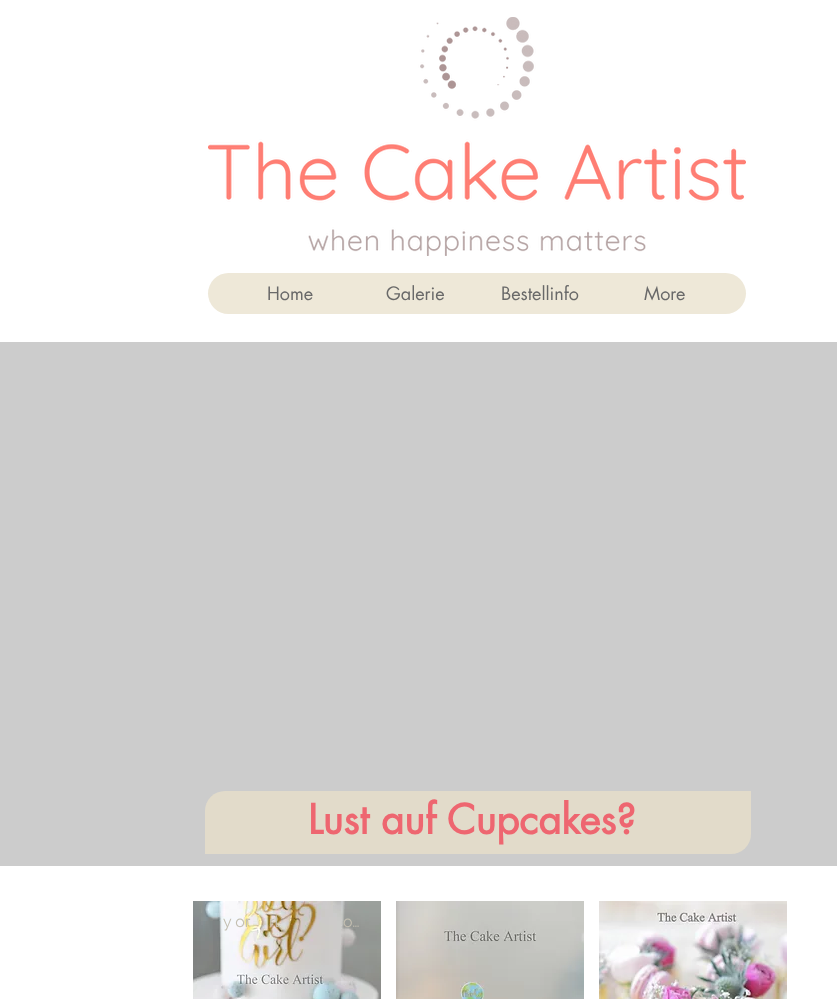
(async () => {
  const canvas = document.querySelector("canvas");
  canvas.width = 837;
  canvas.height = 999;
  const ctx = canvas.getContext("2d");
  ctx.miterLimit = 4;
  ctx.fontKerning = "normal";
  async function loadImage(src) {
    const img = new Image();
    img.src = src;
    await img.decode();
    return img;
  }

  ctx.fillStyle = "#ffffff";
  ctx.fillRect(0, 0, 837, 999);
  ctx.drawImage(await loadImage("img/1.png"), 208, 17, 538, 239);
  ctx.fillStyle = "#eee8d8";
  ctx.beginPath();
  ctx.roundRect(208, 273, 538, 41, 20.5);
  ctx.fill();
  ctx.fillStyle = "#cccccc";
  ctx.fillRect(0, 342, 837, 524);
  ctx.fillStyle = "#e2dbca";
  ctx.beginPath();
  ctx.roundRect(205, 791, 546, 63, [20, 0, 20, 0]);
  ctx.fill();
  ctx.drawImage(await loadImage("img/2.png"), 193, 901, 188, 98);
  ctx.drawImage(await loadImage("img/3.png"), 396, 901, 188, 98);
  ctx.drawImage(await loadImage("img/4.png"), 599, 901, 188, 98);
  ctx.font = "18px futura";
  ctx.fillStyle = "#696969";
  for (const [text, x, y] of [
    ["Home", 267, 300],
    ["Galerie", 386, 300],
    ["Bestellinfo", 501, 300],
    ["More", 644, 300],
  ]) {
    ctx.fillText(text, x, y);
  }
  ctx.font = "bold 40px futura";
  ctx.fillStyle = "#ee6670";
  ctx.fillText("Lust auf Cupcakes?", 308, 834);
  ctx.font = "16px Raleway";
  ctx.fillStyle = "#c4bfb1";
  for (const [text, x, y] of [
    ["y or", 223, 927],
    ["rl", 269, 927],
    ["o…", 343, 927],
  ]) {
    ctx.fillText(text, x, y);
  }
})();
